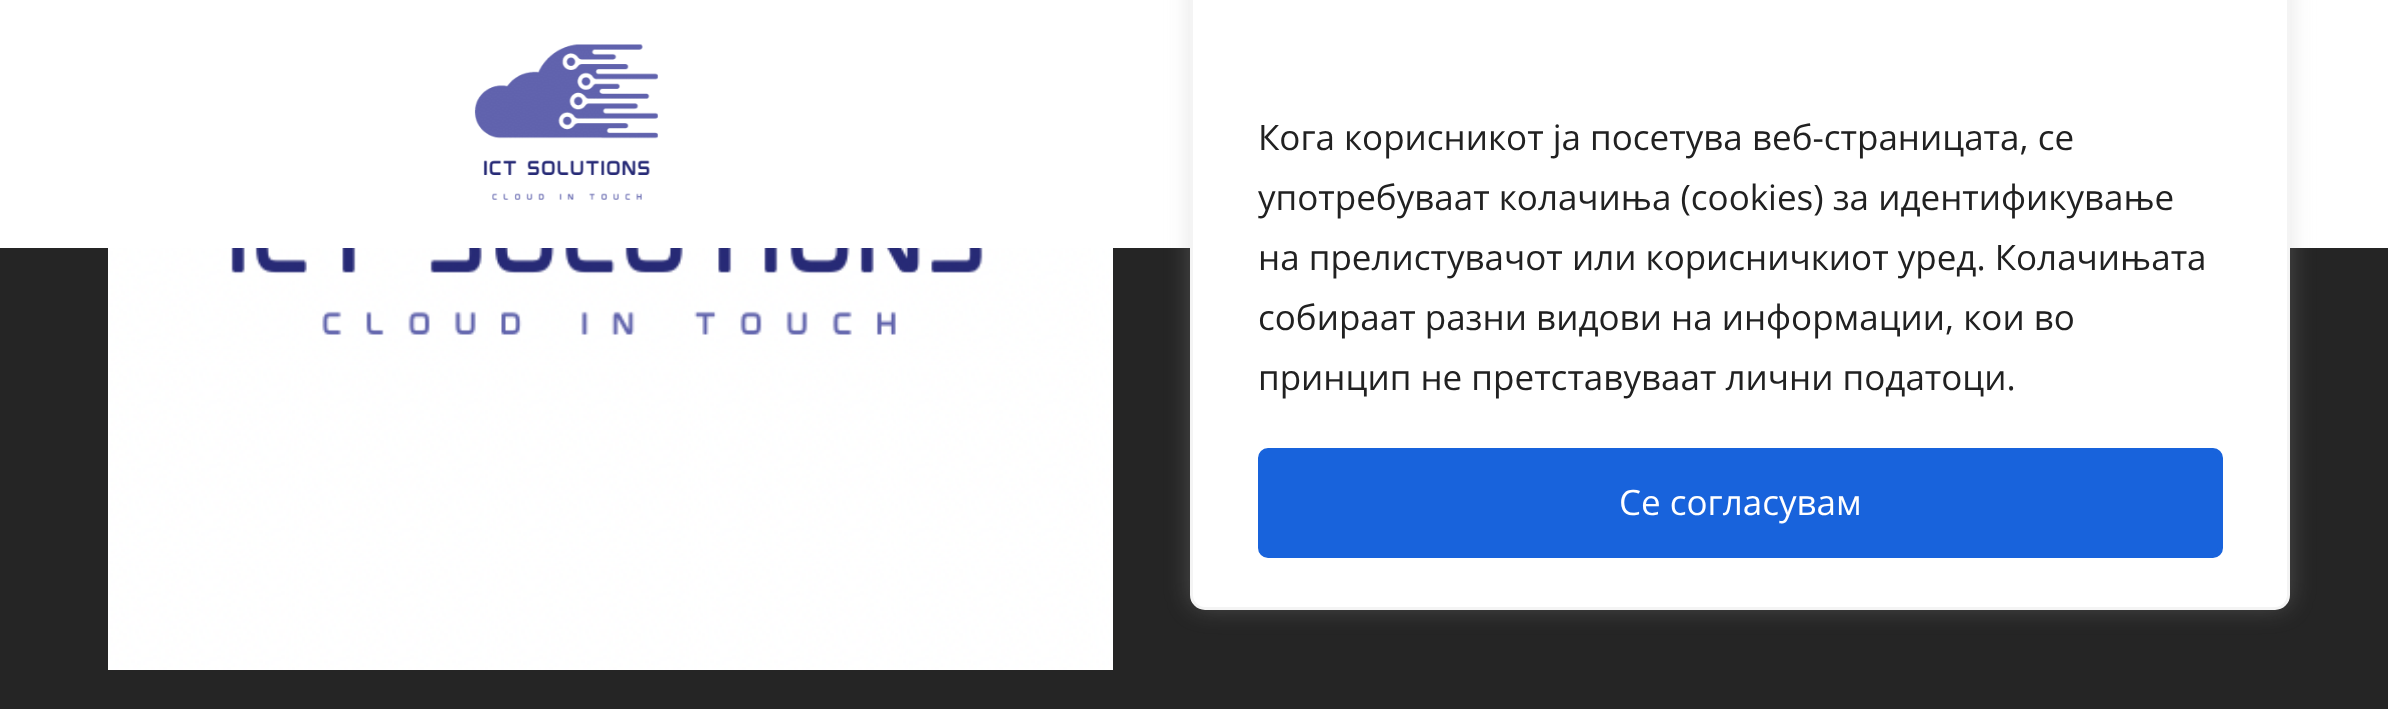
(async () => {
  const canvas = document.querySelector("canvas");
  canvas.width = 2388;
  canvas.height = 709;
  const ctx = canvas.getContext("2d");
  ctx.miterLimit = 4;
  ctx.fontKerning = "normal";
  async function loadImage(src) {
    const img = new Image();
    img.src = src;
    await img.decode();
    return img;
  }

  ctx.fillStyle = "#252525";
  ctx.fillRect(0, 0, 2388, 709);
  ctx.fillStyle = "#ffffff";
  ctx.fillRect(0, 0, 2388, 248);
  ctx.drawImage(await loadImage("img/1.png"), 474, 44, 185, 156);
  ctx.drawImage(await loadImage("img/2.png"), 108, 248, 1005, 422);
  ctx.fillStyle = "rgba(172, 171, 171, 0.3)";
  ctx.filter = "blur(12.5px)";
  ctx.beginPath();
  ctx.roundRect(1190, -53, 1100, 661, 15);
  ctx.fill();
  ctx.filter = "none";
  ctx.fillStyle = "#ffffff";
  ctx.beginPath();
  ctx.roundRect(1191.5, -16.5, 1097, 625, 13.5);
  ctx.fill();
  ctx.strokeStyle = "#f4f4f4";
  ctx.lineWidth = 3;
  ctx.stroke();
  ctx.fillStyle = "#1863dc";
  ctx.beginPath();
  ctx.roundRect(1260.5, 450.5, 960, 105, 7.5);
  ctx.fill();
  ctx.strokeStyle = "#1863dc";
  ctx.lineWidth = 5;
  ctx.stroke();
  ctx.font = "35px Open Sans";
  ctx.fillStyle = "#212121";
  for (const [text, x, y] of [
    ["Кога корисникот ја посетува веб-страницата, се", 1258, 150],
    ["употребуваат колачиња (cookies) за идентификување", 1258, 210],
    ["на прелистувачот или корисничкиот уред. Колачињата", 1258, 270],
    ["собираат разни видови на информации, кои во", 1258, 330],
    ["принцип не претставуваат лични податоци.", 1258, 390],
  ]) {
    ctx.fillText(text, x, y);
  }
  ctx.fillStyle = "#ffffff";
  ctx.fillText("Се согласувам", 1619, 515);
})();
